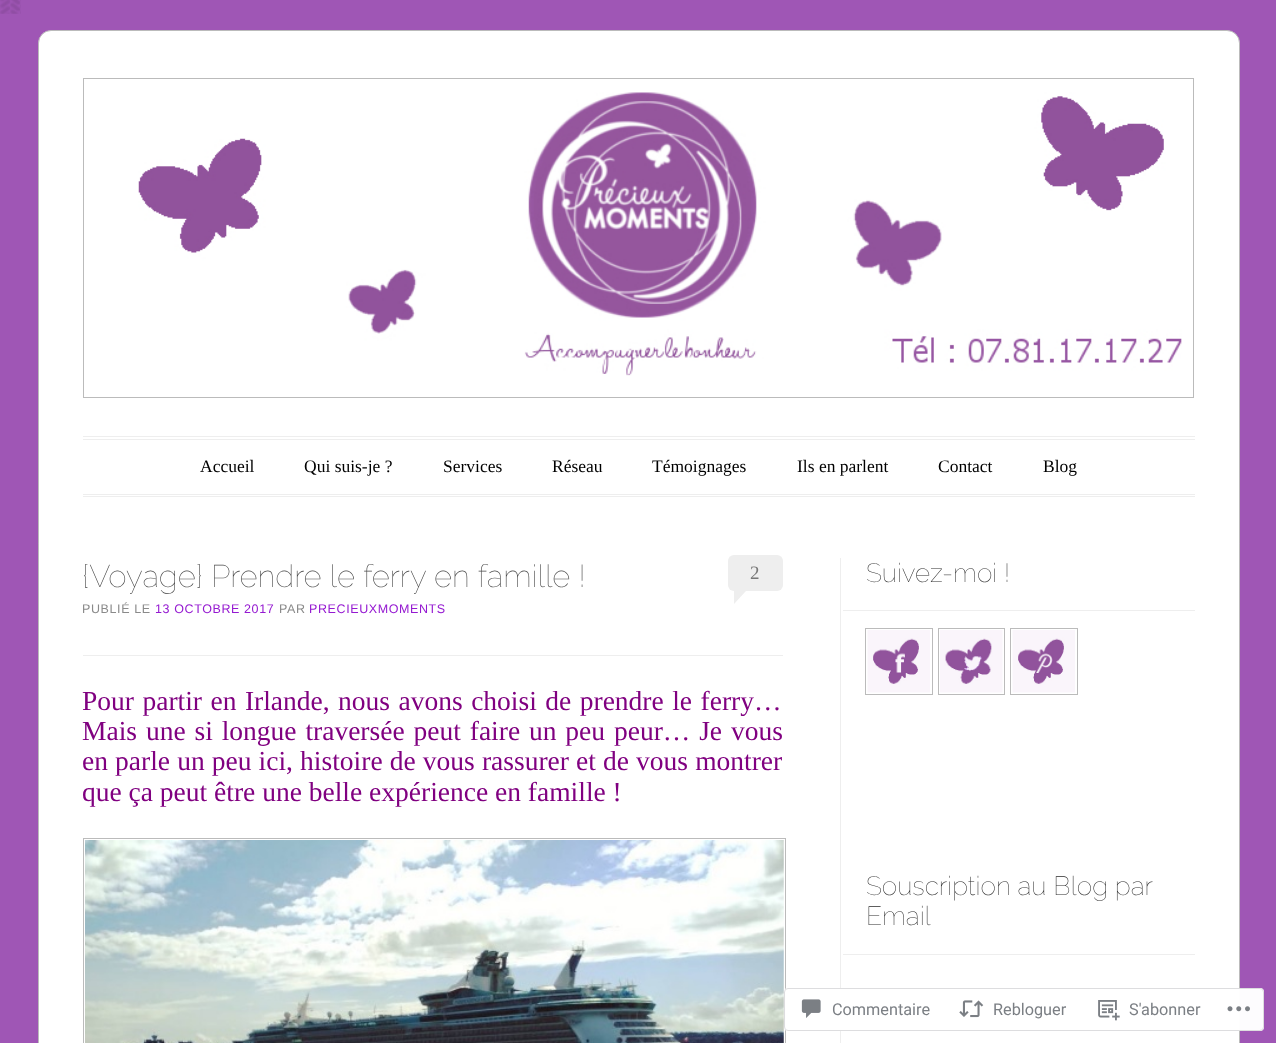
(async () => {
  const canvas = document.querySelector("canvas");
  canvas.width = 1276;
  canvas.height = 1043;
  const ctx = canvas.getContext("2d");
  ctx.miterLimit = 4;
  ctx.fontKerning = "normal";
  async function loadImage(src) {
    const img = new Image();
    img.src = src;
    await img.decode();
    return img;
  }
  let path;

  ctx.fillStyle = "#9f56b5";
  ctx.fillRect(0, 0, 1276, 1043);
  ctx.drawImage(await loadImage("img/1.png"), 0, 0, 21, 14);
  ctx.fillStyle = "#ffffff";
  ctx.beginPath();
  ctx.roundRect(38.5, 30.5, 1201, 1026, 12.5);
  ctx.fill();
  ctx.strokeStyle = "#bbbbbb";
  ctx.stroke();
  ctx.strokeRect(83.5, 78.5, 1110, 319);
  ctx.drawImage(await loadImage("img/2.png"), 138, 92, 1044, 284);
  for (const [x, y, w, h, color] of [
    [83, 436, 1112, 1, "#eeeeee"],
    [83, 439, 1112, 1, "#eeeeee"],
    [83, 494, 1112, 1, "#eeeeee"],
    [83, 496, 1112, 1, "#eeeeee"],
  ]) {
    ctx.fillStyle = color;
    ctx.fillRect(x, y, w, h);
  }
  ctx.beginPath();
  ctx.roundRect(728, 555, 55, 36, 6);
  ctx.fill();
  path = new Path2D("M734 604V591H746Z");
  ctx.fill(path);
  ctx.fillRect(83, 655, 700, 1);
  ctx.strokeRect(83.5, 838.5, 702, 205);
  ctx.drawImage(await loadImage("img/3.png"), 85, 840, 699, 203);
  ctx.fillRect(840, 558, 1, 485);
  ctx.fillRect(843, 610, 352, 1);
  ctx.strokeRect(865.5, 628.5, 67, 66);
  ctx.strokeRect(938.5, 628.5, 66, 66);
  ctx.strokeRect(1010.5, 628.5, 67, 66);
  ctx.drawImage(await loadImage("img/4.png"), 867, 630, 63, 63);
  ctx.drawImage(await loadImage("img/5.png"), 940, 630, 63, 63);
  ctx.drawImage(await loadImage("img/6.png"), 1012, 630, 63, 63);
  ctx.fillRect(843, 954, 352, 1);
  ctx.fillStyle = "rgba(255, 255, 255, 0.98)";
  ctx.beginPath();
  ctx.roundRect(784, 988, 480, 43, 4);
  ctx.fill();
  ctx.beginPath();
  ctx.roundRect(784.5, 988.5, 479, 42, 3.5);
  ctx.strokeStyle = "rgba(220, 220, 222, 0.98)";
  ctx.stroke();
  ctx.drawImage(await loadImage("img/7.png"), 801, 999, 20, 19);
  ctx.drawImage(await loadImage("img/8.png"), 959, 1000, 25, 18);
  ctx.drawImage(await loadImage("img/9.png"), 1098, 1000, 22, 21);
  ctx.drawImage(await loadImage("img/10.png"), 1227, 1006, 23, 6);
  ctx.font = "17.5px Liberation Serif";
  ctx.fillStyle = "#000000";
  for (const [text, x, y] of [
    ["Accueil", 200, 472],
    ["Qui suis-je ?", 304, 472],
    ["Services", 443, 472],
    ["Réseau", 552, 472],
    ["Témoignages", 652, 472],
    ["Ils en parlent", 797, 472],
    ["Contact", 938, 472],
    ["Blog", 1043, 472],
  ]) {
    ctx.fillText(text, x, y);
  }
  ctx.font = "100 31.25px Raleway";
  ctx.fillStyle = "#4a4a4a";
  ctx.fillText("{Voyage} Prendre le ferry en famille !", 82, 587);
  ctx.font = "19px Liberation Serif";
  ctx.fillStyle = "#777777";
  ctx.fillText("2", 750, 579);
  ctx.letterSpacing = "0.6px";
  ctx.font = "12.5px Liberation Sans";
  ctx.fillStyle = "#8a8a8a";
  ctx.fillText("PUBLIÉ LE", 82, 613);
  ctx.fillStyle = "#9519d1";
  ctx.fillText("13 OCTOBRE 2017", 155, 613);
  ctx.fillStyle = "#8a8a8a";
  ctx.fillText("PAR", 279, 613);
  ctx.fillStyle = "#9519d1";
  ctx.fillText("PRECIEUXMOMENTS", 309, 613);
  ctx.letterSpacing = "0px";
  ctx.wordSpacing = "1.6px";
  ctx.font = "27.5px Liberation Serif";
  ctx.fillStyle = "#800080";
  ctx.fillText("Pour partir en Irlande, nous avons choisi de prendre le ferry…", 82, 710);
  ctx.wordSpacing = "2px";
  ctx.fillText("Mais une si longue traversée peut faire un peu peur… Je vous", 82, 740);
  ctx.wordSpacing = "0.25px";
  ctx.fillText("en parle un peu ici, histoire de vous rassurer et de vous montrer", 82, 770);
  ctx.wordSpacing = "0px";
  ctx.fillText("que ça peut être une belle expérience en famille !", 82, 801);
  ctx.font = "100 26.25px Raleway";
  ctx.fillStyle = "#2a2a2a";
  for (const [text, x, y] of [
    ["Suivez-moi !", 866, 582],
    ["Souscription au Blog par", 866, 895],
    ["Email", 866, 925],
  ]) {
    ctx.fillText(text, x, y);
  }
  ctx.font = "16.25px Roboto";
  ctx.fillStyle = "#7b7f84";
  for (const [text, x, y] of [
    ["Commentaire", 832, 1015],
    ["Rebloguer", 993, 1015],
    ["S'abonner", 1129, 1015],
  ]) {
    ctx.fillText(text, x, y);
  }
})();
